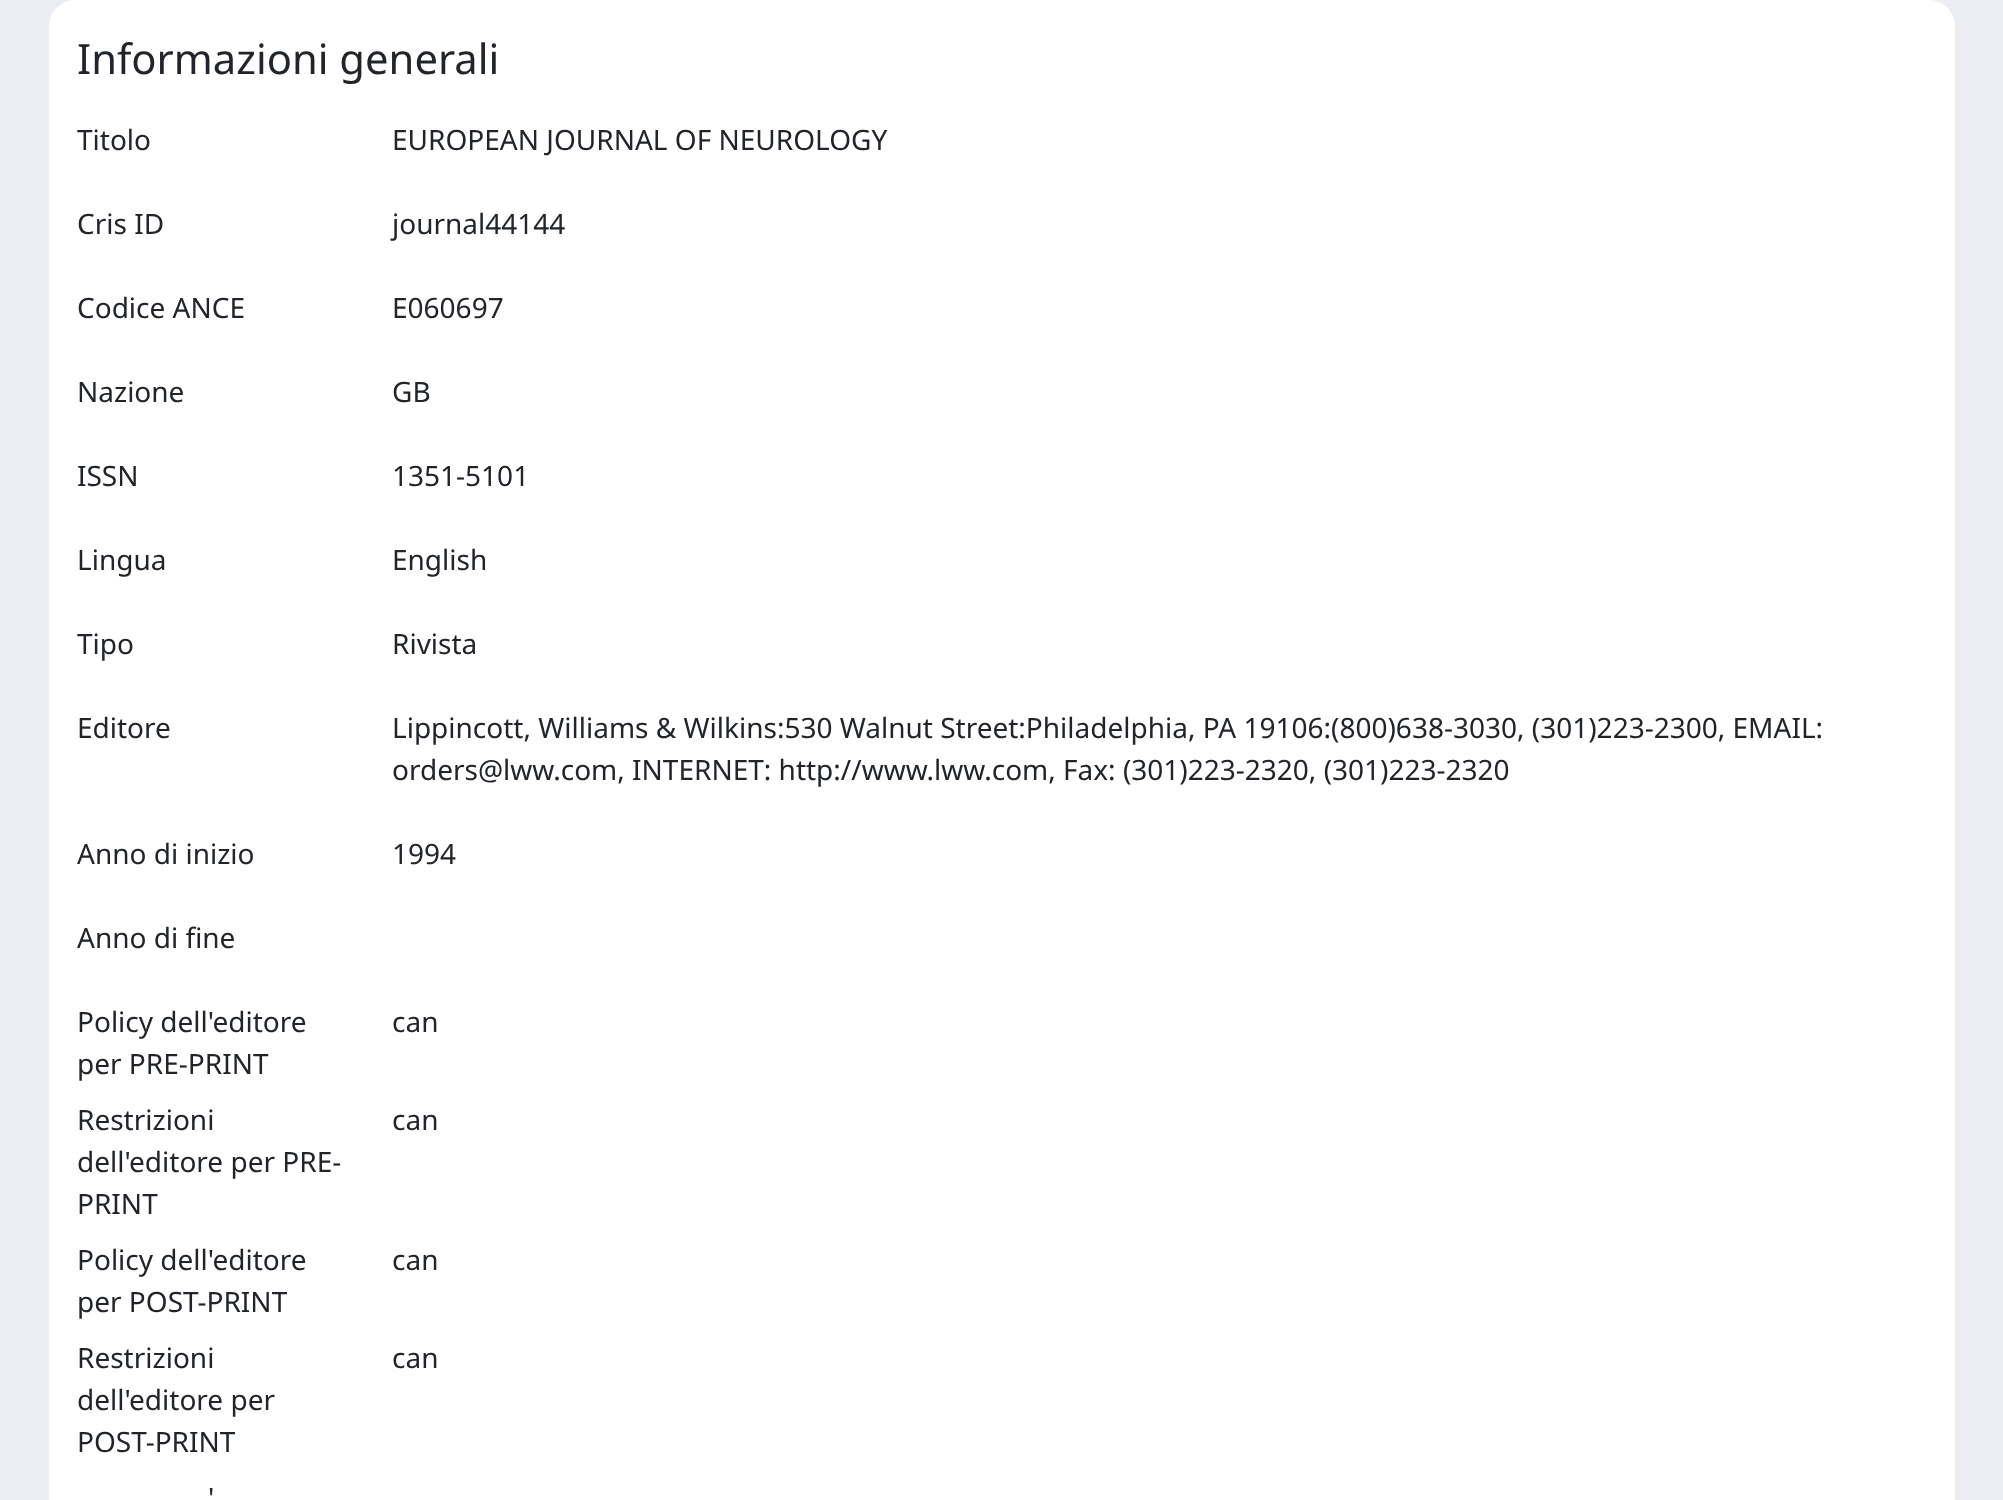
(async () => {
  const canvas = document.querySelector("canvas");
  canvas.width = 2003;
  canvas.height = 1500;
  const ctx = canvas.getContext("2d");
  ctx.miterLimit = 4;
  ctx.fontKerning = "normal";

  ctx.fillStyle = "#ecedf2";
  ctx.fillRect(0, 0, 2003, 1500);
  ctx.fillStyle = "#ffffff";
  ctx.beginPath();
  ctx.roundRect(49, 0, 1906, 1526, 26);
  ctx.fill();
  ctx.font = "41.75px Noto Sans";
  ctx.fillStyle = "#212529";
  ctx.fillText("Informazioni generali", 77, 74);
  ctx.font = "28px Noto Sans";
  for (const [text, x, y] of [
    ["Titolo", 77, 150],
    ["EUROPEAN JOURNAL OF NEUROLOGY", 392, 150],
    ["Cris ID", 77, 234],
    ["journal44144", 392, 234],
    ["Codice ANCE", 77, 318],
    ["E060697", 392, 318],
    ["Nazione", 77, 402],
    ["GB", 392, 402],
    ["ISSN", 77, 486],
    ["1351-5101", 392, 486],
    ["Lingua", 77, 570],
    ["English", 392, 570],
    ["Tipo", 77, 654],
    ["Rivista", 392, 654],
    ["Editore", 77, 738],
    ["Lippincott, Williams & Wilkins:530 Walnut Street:Philadelphia, PA 19106:(800)638-3030, (301)223-2300, EMAIL:", 392, 738],
    ["orders@lww.com, INTERNET: http://www.lww.com, Fax: (301)223-2320, (301)223-2320", 392, 780],
    ["Anno di inizio", 77, 864],
    ["1994", 392, 864],
    ["Anno di fine", 77, 948],
    ["Policy dell'editore", 77, 1032],
    ["per PRE-PRINT", 77, 1074],
    ["can", 392, 1032],
    ["Restrizioni", 77, 1130],
    ["dell'editore per PRE-", 77, 1172],
    ["PRINT", 77, 1214],
    ["can", 392, 1130],
    ["Policy dell'editore", 77, 1270],
    ["per POST-PRINT", 77, 1312],
    ["can", 392, 1270],
    ["Restrizioni", 77, 1368],
    ["dell'editore per", 77, 1410],
    ["POST-PRINT", 77, 1452],
    ["can", 392, 1368],
    ["'", 208, 1508],
  ]) {
    ctx.fillText(text, x, y);
  }
})();
